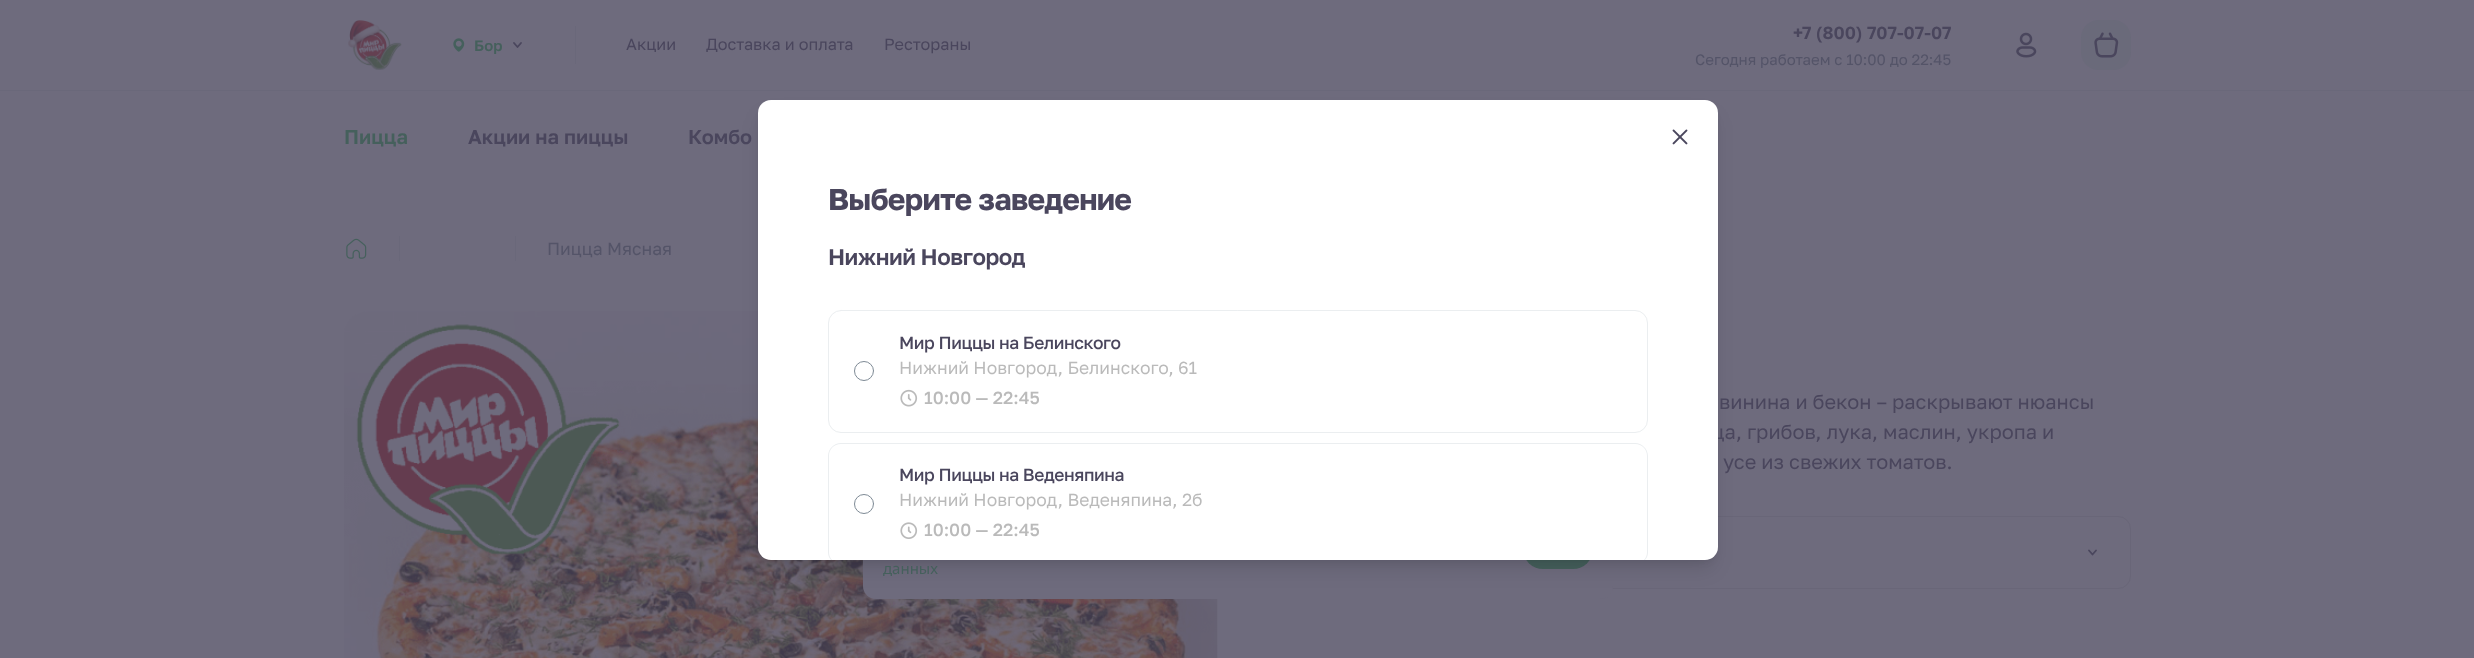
(async () => {
  const canvas = document.querySelector("canvas");
  canvas.width = 2474;
  canvas.height = 658;
  const ctx = canvas.getContext("2d");
  ctx.miterLimit = 4;
  ctx.fontKerning = "normal";
  async function loadImage(src) {
    const img = new Image();
    img.src = src;
    await img.decode();
    return img;
  }
  let path;

  ctx.fillStyle = "#6e6b7d";
  ctx.fillRect(0, 0, 2474, 658);
  ctx.fillStyle = "#6a687a";
  ctx.fillRect(0, 90, 2474, 1);
  ctx.drawImage(await loadImage("img/1.png"), 348, 20, 54, 50);
  ctx.drawImage(await loadImage("img/2.png"), 453, 38, 12, 14);
  path = new Path2D("M514 43L517.5 47L521 43");
  ctx.strokeStyle = "#4a465d";
  ctx.lineWidth = 1.8;
  ctx.lineCap = "round";
  ctx.lineJoin = "round";
  ctx.stroke(path);
  ctx.fillRect(575, 26, 1, 38);
  ctx.drawImage(await loadImage("img/3.png"), 2016, 32, 21, 26);
  ctx.fillStyle = "#6a6a7a";
  ctx.beginPath();
  ctx.roundRect(2081, 20, 50, 50, 18);
  ctx.fill();
  ctx.drawImage(await loadImage("img/4.png"), 2094, 32, 25, 26);
  ctx.drawImage(await loadImage("img/5.png"), 346, 238, 21, 21);
  ctx.fillStyle = "#6a687a";
  ctx.fillRect(399, 236, 1, 25);
  ctx.fillRect(515, 236, 1, 25);
  ctx.drawImage(await loadImage("img/6.png"), 344, 311, 874, 347);
  ctx.beginPath();
  ctx.roundRect(1308.5, 516.5, 822, 72, 12.5);
  ctx.strokeStyle = "#696678";
  ctx.lineWidth = 1;
  ctx.lineJoin = "miter";
  ctx.stroke();
  path = new Path2D("M2089 550.5L2092.5 554.5L2096 550.5");
  ctx.strokeStyle = "#4a465d";
  ctx.lineWidth = 1.8;
  ctx.lineJoin = "round";
  ctx.stroke(path);
  ctx.fillStyle = "#6e6b7d";
  ctx.beginPath();
  ctx.roundRect(863, 499, 750, 100, 13);
  ctx.fill();
  ctx.fillStyle = "#45605c";
  ctx.beginPath();
  ctx.roundRect(1523, 529, 70, 40, 20);
  ctx.fill();
  ctx.fillStyle = "rgba(0, 0, 0, 0.1)";
  ctx.filter = "blur(4px)";
  ctx.beginPath();
  ctx.roundRect(763, 110, 950, 450, 8);
  ctx.fill();
  ctx.filter = "none";
  ctx.filter = "blur(9.5px)";
  ctx.beginPath();
  ctx.roundRect(761, 116, 953, 453, 9);
  ctx.fill();
  ctx.filter = "none";
  ctx.font = "600 15px Golos Text";
  ctx.fillStyle = "#45605c";
  ctx.fillText("Бор", 474, 51);
  ctx.font = "16.25px Golos Text";
  ctx.fillStyle = "#4a465d";
  for (const [text, x, y] of [
    ["Акции", 626, 50],
    ["Доставка и оплата", 706, 50],
    ["Рестораны", 884, 50],
  ]) {
    ctx.fillText(text, x, y);
  }
  ctx.font = "600 17.5px Golos Text";
  ctx.fillText("+7 (800) 707-07-07", 1793, 39);
  ctx.font = "15px Golos Text";
  ctx.fillStyle = "#545468";
  ctx.fillText("Сегодня работаем с 10:00 до 22:45", 1695, 65);
  ctx.font = "600 20px Golos Text";
  ctx.fillStyle = "#45605c";
  ctx.fillText("Пицца", 344, 144);
  ctx.fillStyle = "#4a465d";
  ctx.fillText("Акции на пиццы", 468, 144);
  ctx.fillText("Комбо", 688, 144);
  ctx.font = "17.5px Golos Text";
  ctx.fillStyle = "#545468";
  ctx.fillText("Пицца Мясная", 547, 255);
  ctx.font = "20px Golos Text";
  ctx.fillStyle = "#4a465d";
  for (const [text, x, y] of [
    ["винина и бекон – раскрывают нюансы", 1719, 409],
    ["ца, грибов, лука, маслин, укропа и", 1712, 439],
    ["усе из свежих томатов.", 1723, 469],
  ]) {
    ctx.fillText(text, x, y);
  }
  ctx.fillStyle = "#ffffff";
  ctx.beginPath();
  ctx.roundRect(758, 100, 960, 460, 13);
  ctx.fill();
  ctx.drawImage(await loadImage("img/7.png"), 1672, 129, 16, 16);
  ctx.letterSpacing = "-0.75px";
  ctx.font = "bold 30px Golos Text";
  ctx.fillStyle = "#4a465d";
  ctx.fillText("Выберите заведение", 828, 210);
  ctx.letterSpacing = "-0.5px";
  ctx.font = "600 22.5px Golos Text";
  ctx.fillText("Нижний Новгород", 828, 265);
  ctx.beginPath();
  ctx.roundRect(828.5, 310.5, 819, 122, 12.5);
  ctx.strokeStyle = "#ebeef0";
  ctx.lineWidth = 1;
  ctx.lineJoin = "miter";
  ctx.stroke();
  ctx.beginPath();
  ctx.arc(864, 371, 9.5, 0, Math.PI * 2);
  ctx.strokeStyle = "#7e8a95";
  ctx.stroke();
  ctx.letterSpacing = "-0.4px";
  ctx.font = "500 17.5px Golos Text";
  ctx.fillText("Мир Пиццы на Белинского", 899, 349);
  ctx.letterSpacing = "0px";
  ctx.font = "17.5px Golos Text";
  ctx.fillStyle = "#bababa";
  ctx.fillText("Нижний Новгород, Белинского, 61", 899, 374);
  ctx.drawImage(await loadImage("img/8.png"), 900, 389, 18, 18);
  ctx.font = "500 17.5px Golos Text";
  ctx.fillText("10:00 — 22:45", 924, 404);
  ctx.fillStyle = "#ebeef0";
  path = new Path2D("M841 443C834 443 828 449 828 456V552C828 555 829 558 831 560H832C830 558 829 555 829 552V456C829 449 834 444 841 444H1635C1642 444 1647 449 1647 456V552C1647 555 1646 558 1644 560H1645C1647 558 1648 555 1648 552V456C1648 449 1642 443 1635 443Z");
  ctx.fill(path);
  ctx.beginPath();
  ctx.arc(864, 504, 9.5, 0, Math.PI * 2);
  ctx.stroke();
  ctx.letterSpacing = "-0.4px";
  ctx.fillStyle = "#4a465d";
  ctx.fillText("Мир Пиццы на Веденяпина", 899, 481);
  ctx.letterSpacing = "0px";
  ctx.font = "17.5px Golos Text";
  ctx.fillStyle = "#bababa";
  ctx.fillText("Нижний Новгород, Веденяпина, 2б", 899, 506);
  ctx.drawImage(await loadImage("img/9.png"), 900, 522, 18, 17);
  ctx.font = "500 17.5px Golos Text";
  ctx.fillText("10:00 — 22:45", 924, 536);
  ctx.font = "15px Noto Sans";
  ctx.fillStyle = "#45605c";
  ctx.fillText("данных", 883, 574);
})();
